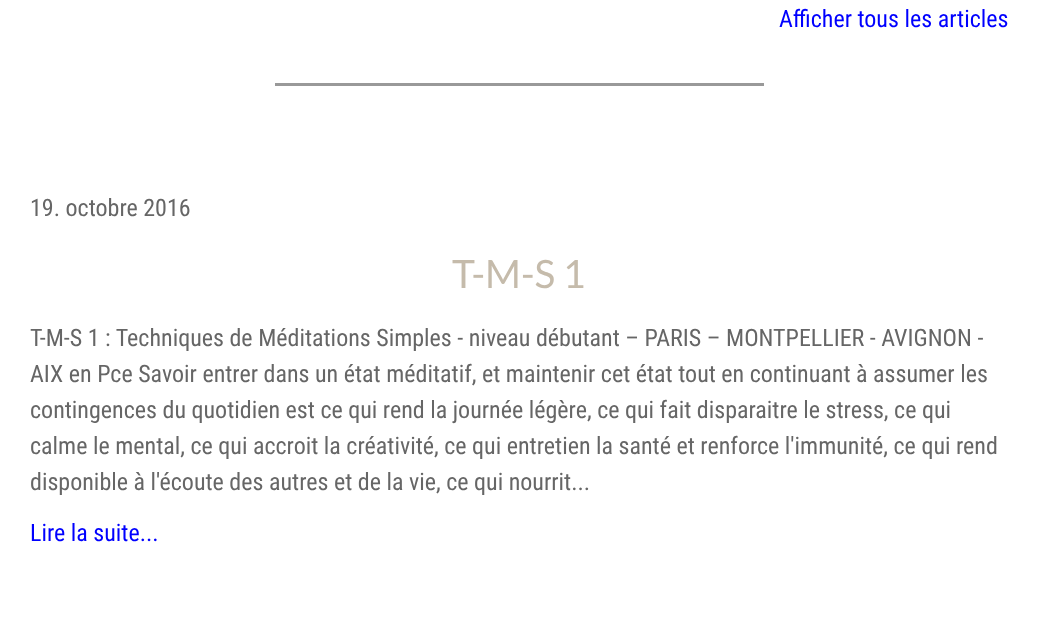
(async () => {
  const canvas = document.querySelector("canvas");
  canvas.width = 1037;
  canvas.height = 636;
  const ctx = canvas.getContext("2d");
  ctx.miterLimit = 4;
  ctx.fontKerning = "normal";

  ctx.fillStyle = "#ffffff";
  ctx.fillRect(0, 0, 1037, 636);
  ctx.fillStyle = "#999999";
  ctx.fillRect(275, 83, 489, 3);
  ctx.font = "24px Roboto Condensed";
  ctx.fillStyle = "#0000ff";
  ctx.fillText("Afficher tous les articles", 779, 27);
  ctx.fillStyle = "#666666";
  ctx.fillText("19. octobre 2016", 30, 216);
  ctx.font = "39px Lato";
  ctx.fillStyle = "#c5bbab";
  ctx.fillText("T-M-S 1", 452, 288);
  ctx.font = "24px Roboto Condensed";
  ctx.fillStyle = "#666666";
  for (const [text, x, y] of [
    ["T-M-S 1 : Techniques de Méditations Simples - niveau débutant – PARIS – MONTPELLIER - AVIGNON -", 30, 346],
    ["AIX en Pce Savoir entrer dans un état méditatif, et maintenir cet état tout en continuant à assumer les", 30, 382],
    ["contingences du quotidien est ce qui rend la journée légère, ce qui fait disparaitre le stress, ce qui", 30, 418],
    ["calme le mental, ce qui accroit la créativité, ce qui entretien la santé et renforce l'immunité, ce qui rend", 30, 454],
    ["disponible à l'écoute des autres et de la vie, ce qui nourrit...", 30, 490],
  ]) {
    ctx.fillText(text, x, y);
  }
  ctx.fillStyle = "#0000ff";
  ctx.fillText("Lire la suite...", 30, 541);
})();
